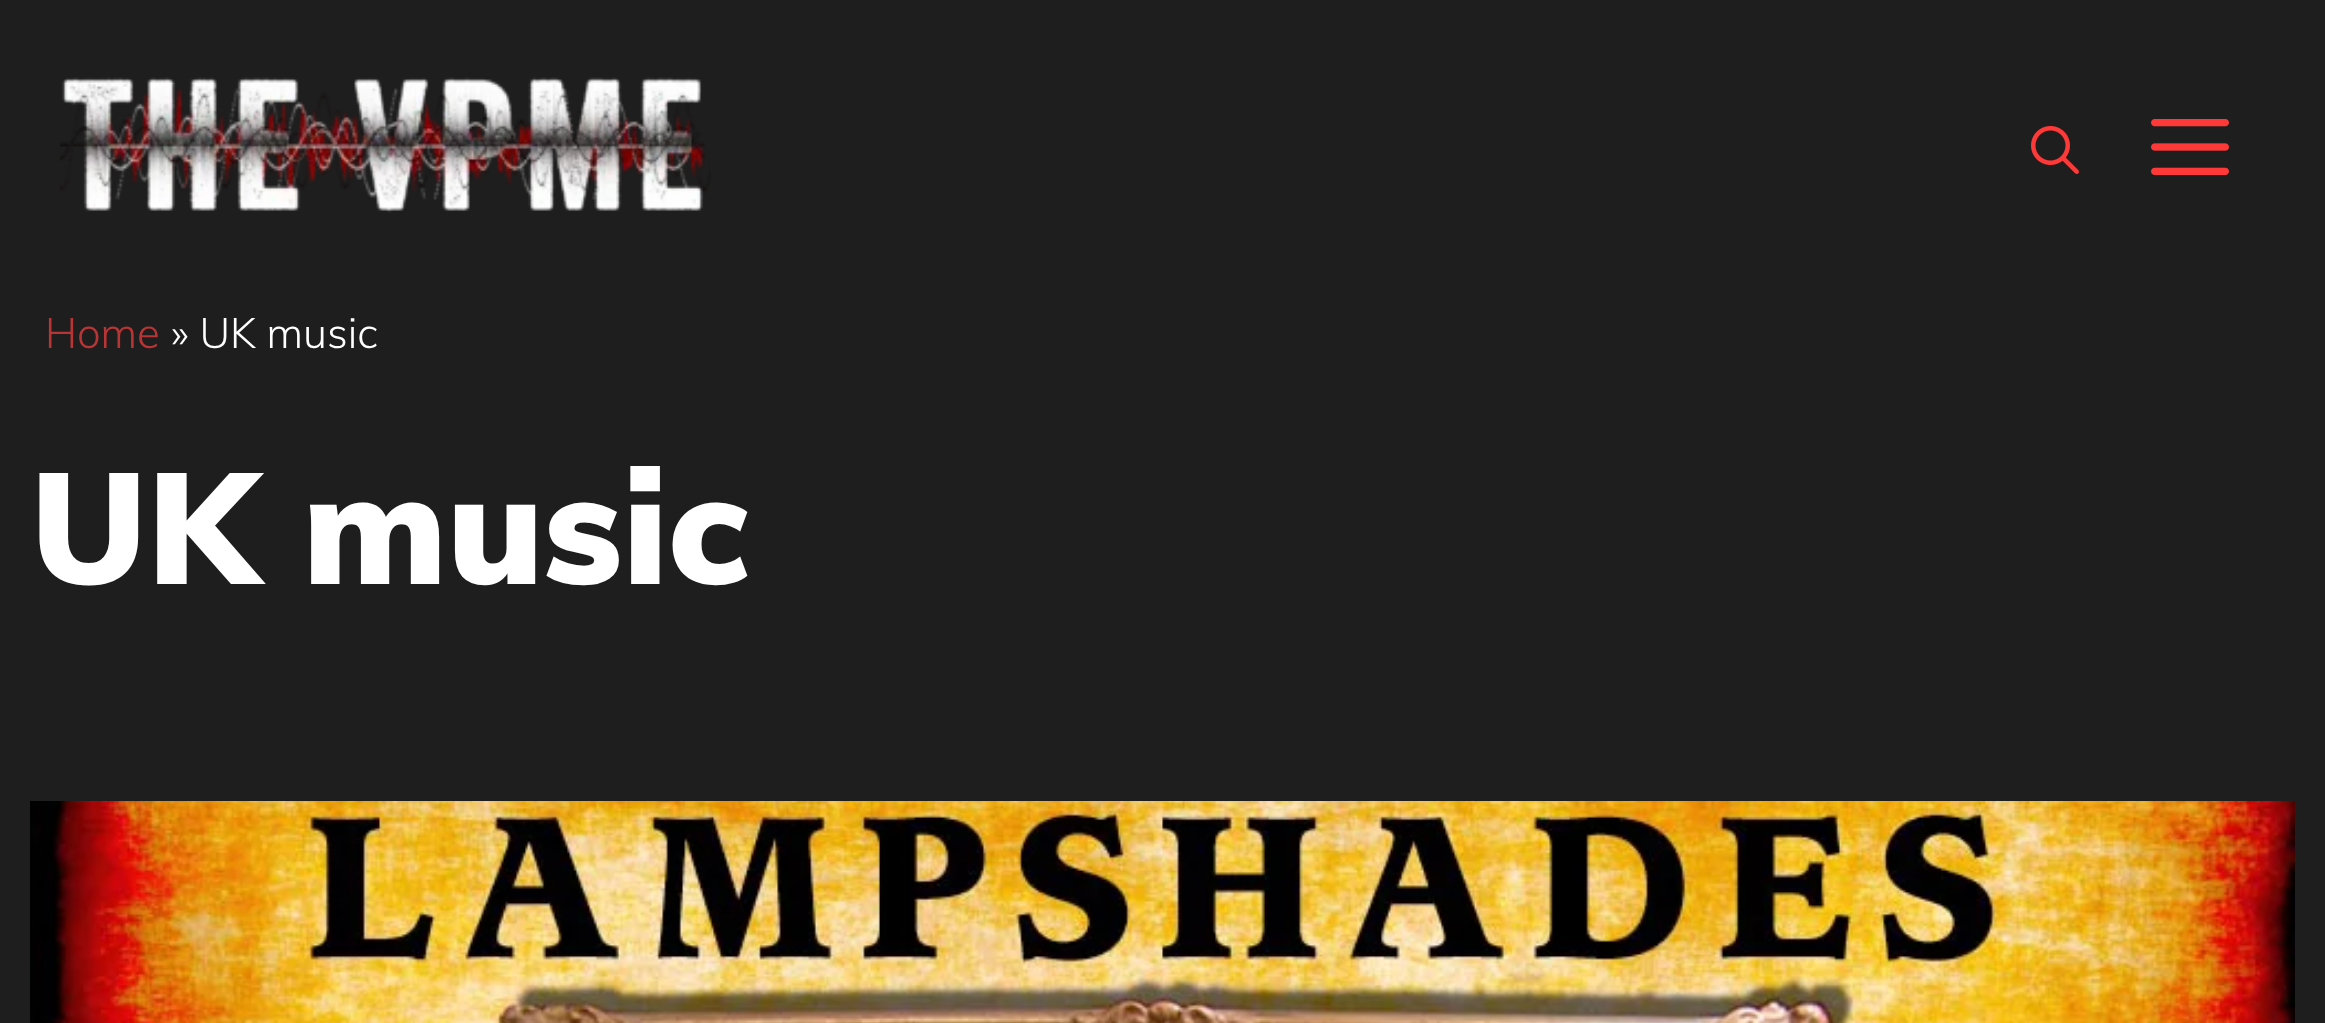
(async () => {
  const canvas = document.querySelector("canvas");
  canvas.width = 2325;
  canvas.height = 1023;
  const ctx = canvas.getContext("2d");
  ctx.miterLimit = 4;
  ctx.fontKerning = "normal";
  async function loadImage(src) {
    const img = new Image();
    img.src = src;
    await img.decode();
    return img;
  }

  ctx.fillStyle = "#1e1e1e";
  ctx.fillRect(0, 0, 2325, 1023);
  ctx.drawImage(await loadImage("img/1.png"), 60, 77, 651, 136);
  ctx.drawImage(await loadImage("img/2.png"), 2031, 126, 48, 48);
  ctx.drawImage(await loadImage("img/3.png"), 2151, 119, 78, 56);
  ctx.drawImage(await loadImage("img/4.png"), 30, 801, 2265, 222);
  ctx.font = "300 42px Muli";
  ctx.fillStyle = "#b93434";
  ctx.fillText("Home", 45, 348);
  ctx.fillStyle = "#ffffff";
  ctx.fillText("» UK music", 171, 348);
  ctx.font = "900 156px Muli";
  ctx.fillText("UK music", 30, 584);
})();
